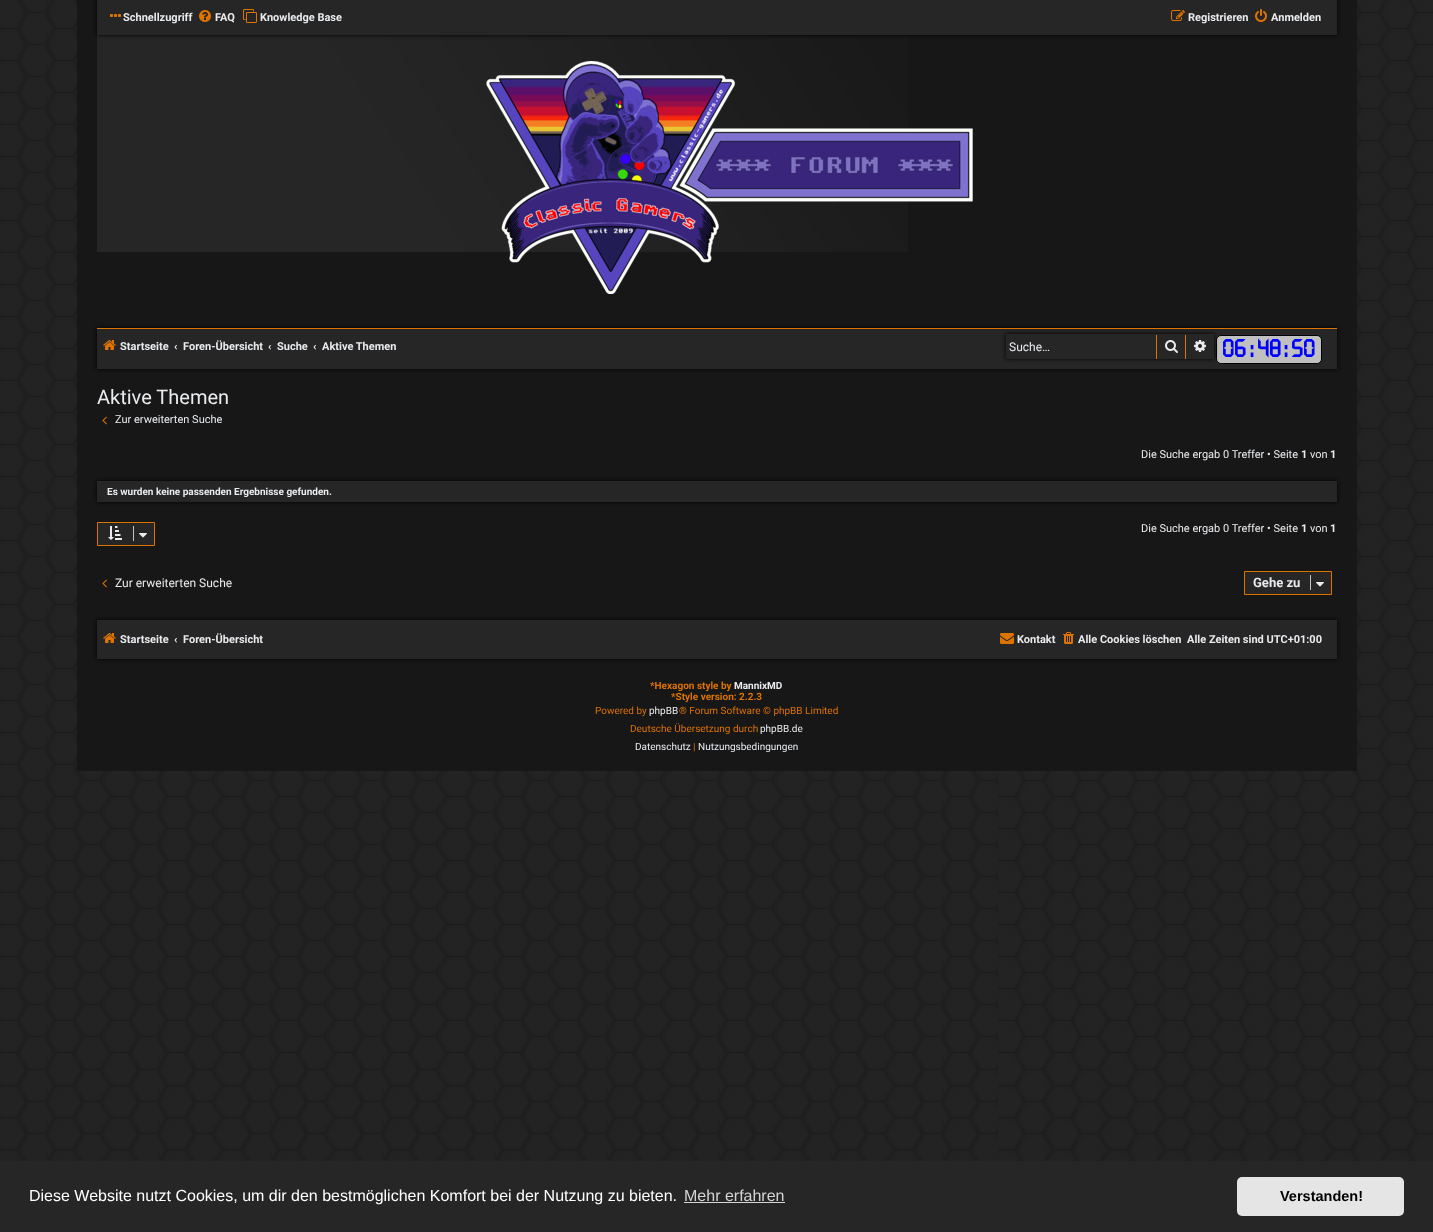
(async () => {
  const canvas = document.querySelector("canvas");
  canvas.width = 1433;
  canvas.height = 1232;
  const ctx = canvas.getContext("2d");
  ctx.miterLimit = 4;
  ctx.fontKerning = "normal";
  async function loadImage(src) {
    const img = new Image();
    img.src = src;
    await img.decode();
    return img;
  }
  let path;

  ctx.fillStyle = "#ffffff";
  ctx.fillRect(0, 0, 1433, 1232);
  ctx.drawImage(await loadImage("img/1.png"), 0, 0, 1433, 1161);
  ctx.fillStyle = "#171717";
  ctx.fillRect(77, 0, 1280, 771);
  ctx.drawImage(await loadImage("img/7.png"), 97, 35, 811, 217);
  ctx.fillStyle = "#000000";
  ctx.filter = "blur(2px)";
  ctx.beginPath();
  ctx.rect(97, 0, 1240, 35);
  ctx.fill();
  ctx.filter = "none";
  ctx.fillStyle = "#262626";
  ctx.fillRect(97, 0, 1240, 35);
  ctx.drawImage(await loadImage("img/2.png"), 110, 14, 11, 3);
  ctx.drawImage(await loadImage("img/3.png"), 199, 10, 12, 12);
  ctx.drawImage(await loadImage("img/4.png"), 243, 9, 14, 14);
  ctx.drawImage(await loadImage("img/5.png"), 1171, 10, 14, 11);
  ctx.drawImage(await loadImage("img/6.png"), 1255, 9, 12, 13);
  ctx.drawImage(await loadImage("img/8.png"), 486, 61, 487, 233);
  ctx.fillStyle = "#000000";
  ctx.filter = "blur(2px)";
  ctx.beginPath();
  ctx.rect(97, 328, 1240, 41);
  ctx.fill();
  ctx.filter = "none";
  ctx.fillStyle = "#262626";
  ctx.fillRect(97, 329, 1240, 40);
  ctx.fillStyle = "#de7300";
  ctx.fillRect(97, 328, 1240, 1);
  ctx.drawImage(await loadImage("img/9.png"), 103, 340, 13, 10);
  ctx.fillStyle = "#c0c0c0";
  ctx.beginPath();
  ctx.roundRect(1216.5, 335.5, 105, 28, 4.5);
  ctx.fill();
  ctx.strokeStyle = "#000000";
  ctx.stroke();
  ctx.save();
  path = new Path2D("M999 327H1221V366H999ZM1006 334H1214V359H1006Z");
  ctx.clip(path, "evenodd");
  ctx.fillStyle = "#000000";
  ctx.filter = "blur(2px)";
  ctx.beginPath();
  ctx.rect(1006, 334, 208, 25);
  ctx.fill();
  ctx.filter = "none";
  ctx.restore();
  ctx.fillStyle = "#de7300";
  ctx.fillRect(1185, 335, 1, 24);
  ctx.fillRect(1156, 335, 1, 24);
  ctx.drawImage(await loadImage("img/10.png"), 1165, 340, 13, 13);
  ctx.drawImage(await loadImage("img/11.png"), 1194, 340, 12, 12);
  ctx.drawImage(await loadImage("img/12.png"), 102, 416, 5, 9);
  ctx.fillStyle = "#000000";
  ctx.filter = "blur(2px)";
  ctx.beginPath();
  ctx.rect(97, 481, 1240, 21);
  ctx.fill();
  ctx.filter = "none";
  ctx.fillStyle = "#262626";
  ctx.fillRect(97, 481, 1240, 21);
  ctx.beginPath();
  ctx.rect(97.5, 522.5, 57, 23);
  ctx.fill();
  ctx.strokeStyle = "#de7300";
  ctx.stroke();
  ctx.drawImage(await loadImage("img/13.png"), 108, 526, 14, 14);
  ctx.fillStyle = "#c7c3bf";
  ctx.fillRect(133, 526, 1, 15);
  ctx.drawImage(await loadImage("img/14.png"), 139, 533, 8, 5);
  ctx.drawImage(await loadImage("img/12.png"), 102, 579, 5, 9);
  ctx.fillStyle = "#262626";
  ctx.beginPath();
  ctx.rect(1244.5, 571.5, 87, 23);
  ctx.fill();
  ctx.stroke();
  ctx.fillStyle = "#c7c3bf";
  ctx.fillRect(1310, 575, 1, 15);
  ctx.drawImage(await loadImage("img/14.png"), 1316, 582, 8, 5);
  ctx.fillStyle = "#000000";
  ctx.filter = "blur(2px)";
  ctx.beginPath();
  ctx.rect(97, 620, 1240, 39);
  ctx.fill();
  ctx.filter = "none";
  ctx.fillStyle = "#262626";
  ctx.fillRect(97, 620, 1240, 39);
  ctx.drawImage(await loadImage("img/9.png"), 103, 633, 13, 10);
  ctx.drawImage(await loadImage("img/15.png"), 1000, 633, 14, 11);
  ctx.drawImage(await loadImage("img/16.png"), 1063, 632, 11, 12);
  ctx.fillRect(0, 1161, 1433, 71);
  ctx.fillStyle = "#d4d4d4";
  ctx.fillRect(684, 1202, 101, 1);
  ctx.fillStyle = "#e5e5e5";
  ctx.beginPath();
  ctx.roundRect(1237, 1177, 167, 39, 5);
  ctx.fill();
  ctx.font = "bold 11px Roboto";
  ctx.fillStyle = "#e9ebee";
  for (const [text, x, y] of [
    ["Schnellzugriff", 123, 21],
    ["FAQ", 215, 21],
    ["Knowledge Base", 260, 21],
    ["Registrieren", 1188, 21],
    ["Anmelden", 1271, 21],
    ["Startseite", 120, 350],
    ["‹", 174, 350],
    ["Foren-Übersicht", 183, 350],
    ["‹", 268, 350],
    ["Suche", 277, 350],
    ["‹", 313, 350],
    ["Aktive Themen", 322, 350],
  ]) {
    ctx.fillText(text, x, y);
  }
  ctx.font = "12px Roboto";
  ctx.fillText("Suche…", 1009, 351);
  ctx.font = "bold 24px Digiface";
  ctx.fillStyle = "#0000ff";
  for (const [text, x, y] of [
    ["06", 1222, 357],
    [":", 1250, 357],
    ["48", 1257, 357],
    [":", 1284, 357],
    ["50", 1291, 357],
  ]) {
    ctx.fillText(text, x, y);
  }
  ctx.font = "20px Roboto";
  ctx.fillStyle = "#e9ebee";
  ctx.fillText("Aktive Themen", 97, 404);
  ctx.font = "11px Roboto";
  ctx.fillText("Zur erweiterten Suche", 115, 423);
  ctx.fillText("Die Suche ergab 0 Treffer • Seite", 1141, 458);
  ctx.font = "bold 11px Roboto";
  ctx.fillText("1", 1301, 458);
  ctx.font = "11px Roboto";
  ctx.fillText("von", 1310, 458);
  ctx.font = "bold 11px Roboto";
  ctx.fillText("1", 1330, 458);
  ctx.font = "bold 10px Roboto";
  ctx.fillText("Es wurden keine passenden Ergebnisse gefunden.", 107, 495);
  ctx.font = "11px Roboto";
  ctx.fillText("Die Suche ergab 0 Treffer • Seite", 1141, 532);
  ctx.font = "bold 11px Roboto";
  ctx.fillText("1", 1301, 532);
  ctx.font = "11px Roboto";
  ctx.fillText("von", 1310, 532);
  ctx.font = "bold 11px Roboto";
  ctx.fillText("1", 1330, 532);
  ctx.font = "12px Roboto";
  ctx.fillText("Zur erweiterten Suche", 115, 587);
  ctx.font = "bold 13px Roboto";
  ctx.fillText("Gehe zu", 1253, 587);
  ctx.font = "bold 11px Roboto";
  for (const [text, x, y] of [
    ["Startseite", 120, 643],
    ["‹", 174, 643],
    ["Foren-Übersicht", 183, 643],
    ["Kontakt", 1017, 643],
    ["Alle Cookies löschen", 1078, 643],
    ["Alle Zeiten sind UTC+01:00", 1187, 643],
  ]) {
    ctx.fillText(text, x, y);
  }
  ctx.font = "bold 10px Roboto";
  ctx.fillStyle = "#de7300";
  ctx.fillText("*Hexagon style by", 650, 689);
  ctx.fillStyle = "#e9ebee";
  ctx.fillText("MannixMD", 734, 689);
  ctx.fillStyle = "#de7300";
  ctx.fillText("*Style version: 2.2.3", 671, 700);
  ctx.font = "10px Roboto";
  ctx.fillText("Powered by", 595, 714);
  ctx.fillStyle = "#e9ebee";
  ctx.fillText("phpBB", 649, 714);
  ctx.fillStyle = "#de7300";
  ctx.fillText("® Forum Software © phpBB Limited", 679, 714);
  ctx.fillText("Deutsche Übersetzung durch", 630, 732);
  ctx.fillStyle = "#e9ebee";
  ctx.fillText("phpBB.de", 760, 732);
  ctx.fillText("Datenschutz", 635, 750);
  ctx.fillStyle = "#de7300";
  ctx.fillText("|", 693, 750);
  ctx.fillStyle = "#e9ebee";
  ctx.fillText("Nutzungsbedingungen", 698, 750);
  ctx.font = "16px Liberation Sans";
  ctx.fillStyle = "#ffffff";
  ctx.fillText("Diese Website nutzt Cookies, um dir den bestmöglichen Komfort bei der Nutzung zu bieten.", 29, 1201);
  ctx.fillStyle = "#d4d4d4";
  ctx.fillText("Mehr erfahren", 684, 1201);
  ctx.font = "bold 14.5px Liberation Sans";
  ctx.fillStyle = "#000000";
  ctx.fillText("Verstanden!", 1280, 1201);
})();
